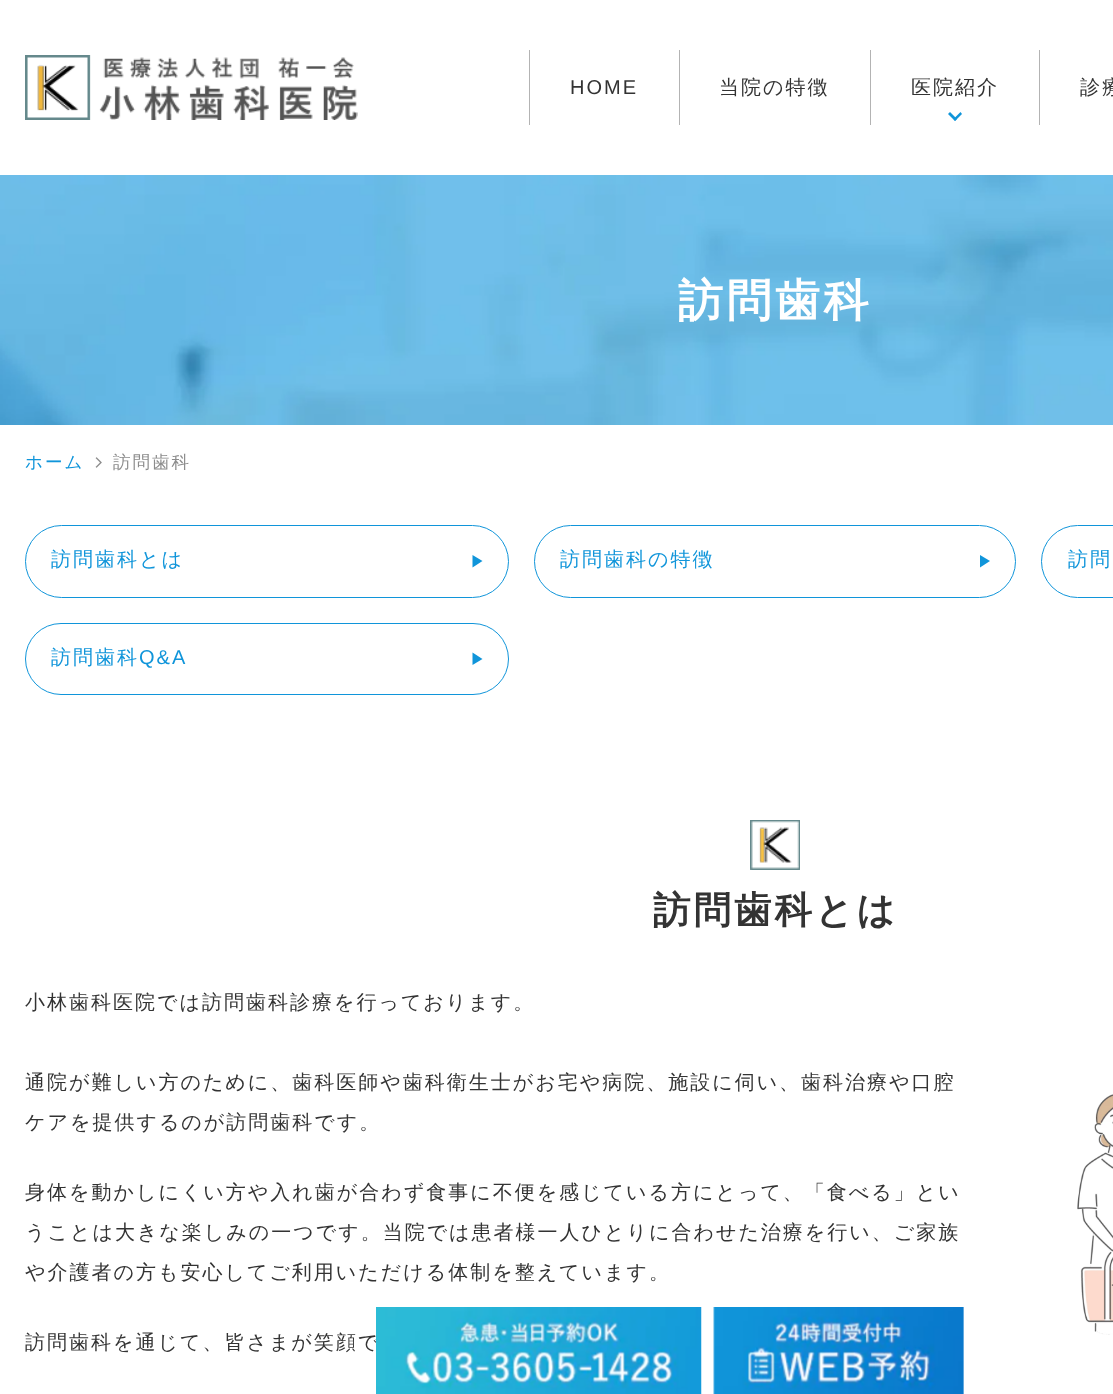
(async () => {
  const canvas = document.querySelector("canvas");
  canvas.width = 1113;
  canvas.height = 1394;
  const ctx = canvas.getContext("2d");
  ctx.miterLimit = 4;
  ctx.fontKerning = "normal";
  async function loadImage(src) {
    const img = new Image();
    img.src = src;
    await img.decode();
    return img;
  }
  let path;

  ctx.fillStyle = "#ffffff";
  ctx.fillRect(0, 0, 1113, 1394);
  ctx.drawImage(await loadImage("img/1.png"), 25, 55, 333, 65);
  for (const [x, y, w, h, color] of [
    [679, 50, 1, 75, "#b3b3b3"],
    [529, 50, 1, 75, "#b3b3b3"],
    [870, 50, 1, 75, "#b3b3b3"],
    [1039, 50, 1, 75, "#b3b3b3"],
  ]) {
    ctx.fillStyle = color;
    ctx.fillRect(x, y, w, h);
  }
  ctx.fillStyle = "#1095da";
  path = new Path2D("M960.5 112L962 114L955 121L953.5 119Z");
  ctx.fill(path);
  path = new Path2D("M950 112L957 119L955 121L948 114Z");
  ctx.fill(path);
  ctx.drawImage(await loadImage("img/2.png"), 0, 175, 1113, 250);
  ctx.drawImage(await loadImage("img/3.png"), 95, 457, 7, 11);
  ctx.beginPath();
  ctx.roundRect(25.5, 525.5, 483, 72, 36);
  ctx.strokeStyle = "#1095da";
  ctx.stroke();
  path = new Path2D("M472.5 567.5V555L482.5 561Z");
  ctx.fill(path);
  ctx.beginPath();
  ctx.roundRect(534.5, 525.5, 481, 72, 36);
  ctx.stroke();
  path = new Path2D("M980 567.5V555L990 561Z");
  ctx.fill(path);
  ctx.beginPath();
  ctx.roundRect(1041.5, 525.5, 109, 72, 36);
  ctx.stroke();
  ctx.beginPath();
  ctx.roundRect(25.5, 623.5, 483, 71, 35.5);
  ctx.stroke();
  path = new Path2D("M472.5 665V652.5L482.5 659Z");
  ctx.fill(path);
  ctx.drawImage(await loadImage("img/4.png"), 750, 820, 50, 50);
  ctx.drawImage(await loadImage("img/5.png"), 1077, 1094, 36, 241);
  ctx.drawImage(await loadImage("img/7.png"), 713, 1307, 251, 87);
  ctx.letterSpacing = "2px";
  ctx.font = "20px Liberation Sans";
  ctx.fillStyle = "#333333";
  ctx.fillText("HOME", 570, 94);
  ctx.font = "500 20px WenQuanYi Zen Hei";
  for (const [text, x, y] of [
    ["当院の特徴", 719, 94],
    ["医院紹介", 911, 94],
    ["診療", 1080, 94],
  ]) {
    ctx.fillText(text, x, y);
  }
  ctx.letterSpacing = "3.5px";
  ctx.font = "bold 45px WenQuanYi Zen Hei";
  ctx.fillStyle = "#ffffff";
  ctx.fillText("訪問歯科", 678, 316);
  ctx.letterSpacing = "2px";
  ctx.font = "500 17.5px WenQuanYi Zen Hei";
  ctx.fillStyle = "#1095da";
  ctx.fillText("ホーム", 25, 468);
  ctx.fillStyle = "#8c8c8c";
  ctx.fillText("訪問歯科", 113, 468);
  ctx.font = "500 20px WenQuanYi Zen Hei";
  ctx.fillStyle = "#1095da";
  for (const [text, x, y] of [
    ["訪問歯科とは", 51, 566],
    ["訪問歯科の特徴", 560, 566],
    ["訪問", 1068, 566],
    ["訪問歯科", 51, 664],
  ]) {
    ctx.fillText(text, x, y);
  }
  ctx.font = "20px Liberation Sans";
  ctx.fillText("Q&A", 139, 664);
  ctx.letterSpacing = "3px";
  ctx.font = "bold 37.5px WenQuanYi Zen Hei";
  ctx.fillStyle = "#333333";
  ctx.fillText("訪問歯科とは", 653, 923);
  ctx.letterSpacing = "2px";
  ctx.font = "500 20px WenQuanYi Zen Hei";
  for (const [text, x, y] of [
    ["小林歯科医院では訪問歯科診療を行っております。", 25, 1009],
    ["通院が難しい方のために、歯科医師や歯科衛生士がお宅や病院、施設に伺い、歯科治療や口腔", 25, 1089],
    ["ケアを提供するのが訪問歯科です。", 25, 1129],
    ["身体を動かしにくい方や入れ歯が合わず食事に不便を感じている方にとって、「食べる」とい", 25, 1199],
    ["うことは大きな楽しみの一つです。当院では患者様一人ひとりに合わせた治療を行い、ご家族", 25, 1239],
    ["や介護者の方も安心してご利用いただける体制を整えています。", 25, 1279],
    ["訪問歯科を通じて、皆さまが笑顔で", 25, 1349],
  ]) {
    ctx.fillText(text, x, y);
  }
  ctx.drawImage(await loadImage("img/6.png"), 376, 1307, 326, 87);
})();
